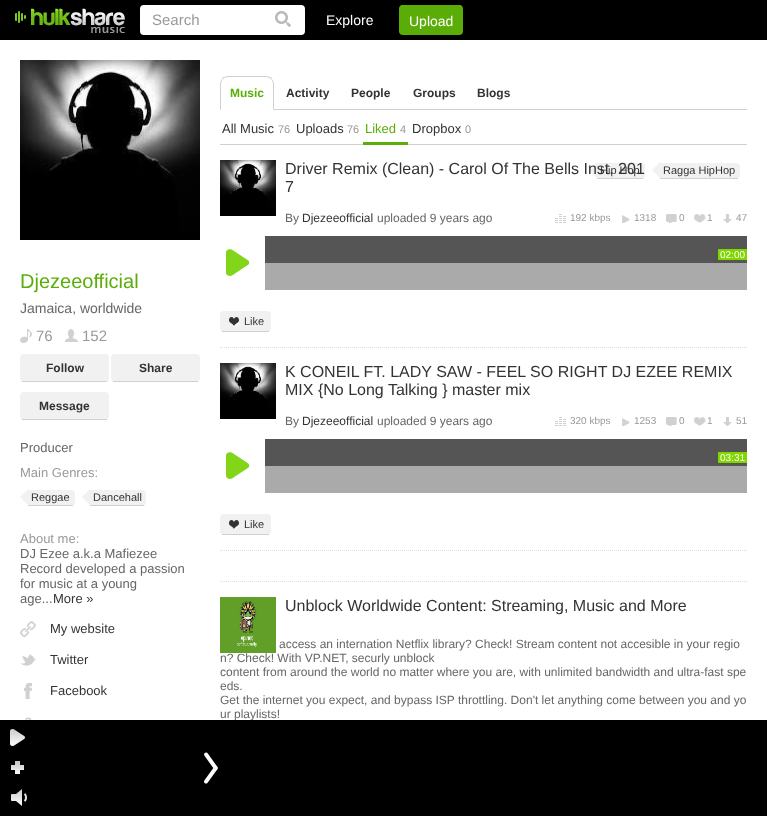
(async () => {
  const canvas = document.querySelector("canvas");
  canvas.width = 767;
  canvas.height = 816;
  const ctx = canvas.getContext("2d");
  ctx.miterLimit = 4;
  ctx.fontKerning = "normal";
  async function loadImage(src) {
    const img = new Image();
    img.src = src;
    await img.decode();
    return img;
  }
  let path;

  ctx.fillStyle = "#ffffff";
  ctx.fillRect(0, 0, 767, 816);
  ctx.fillStyle = "#000000";
  ctx.fillRect(0, 0, 767, 40);
  ctx.drawImage(await loadImage("img/1.png"), 15, 8, 110, 25);
  ctx.fillStyle = "#ffffff";
  ctx.beginPath();
  ctx.roundRect(141, 6, 163, 28, 3);
  ctx.fill();
  ctx.strokeStyle = "#ffffff";
  ctx.lineWidth = 2;
  ctx.stroke();
  ctx.drawImage(await loadImage("img/2.png"), 275, 11, 16, 16);
  ctx.fillStyle = "#5aad07";
  ctx.beginPath();
  ctx.roundRect(399, 5, 64, 30, 4);
  ctx.fill();
  ctx.fillRect(401, 5, 60, 1);
  ctx.drawImage(await loadImage("img/3.png"), 20, 60, 180, 180);
  ctx.drawImage(await loadImage("img/4.png"), 72, 81, 61, 60);
  ctx.drawImage(await loadImage("img/5.png"), 20, 329, 12, 14);
  ctx.drawImage(await loadImage("img/6.png"), 65, 329, 13, 13);
  ctx.fillStyle = "#f1f1f1";
  ctx.beginPath();
  ctx.roundRect(20, 354, 89, 28, 4);
  ctx.fill();
  ctx.fillStyle = "#d0d0d0";
  ctx.fillRect(22, 381, 85, 1);
  ctx.fillStyle = "#f1f1f1";
  ctx.beginPath();
  ctx.roundRect(111, 354, 89, 28, 4);
  ctx.fill();
  ctx.fillStyle = "#d0d0d0";
  ctx.fillRect(113, 381, 85, 1);
  ctx.fillStyle = "#f1f1f1";
  ctx.beginPath();
  ctx.roundRect(20, 392, 89, 28, 4);
  ctx.fill();
  ctx.fillStyle = "#d0d0d0";
  ctx.fillRect(22, 419, 85, 1);
  ctx.fillStyle = "#f1f1f1";
  ctx.beginPath();
  ctx.roundRect(28, 490, 47, 16, [0, 4, 4, 0]);
  ctx.fill();
  ctx.fillStyle = "#d0d0d0";
  ctx.fillRect(28, 505, 45, 1);
  ctx.fillStyle = "#f1f1f1";
  path = new Path2D("M28 489V505L20 497Z");
  ctx.fill(path);
  ctx.beginPath();
  ctx.roundRect(90, 490, 56, 16, [0, 4, 4, 0]);
  ctx.fill();
  ctx.fillStyle = "#d0d0d0";
  ctx.fillRect(90, 505, 54, 1);
  ctx.fillStyle = "#f1f1f1";
  path = new Path2D("M90 489V505L82 497Z");
  ctx.fill(path);
  ctx.drawImage(await loadImage("img/7.png"), 20, 621, 16, 16);
  ctx.drawImage(await loadImage("img/8.png"), 21, 654, 15, 12);
  ctx.drawImage(await loadImage("img/9.png"), 24, 683, 8, 16);
  ctx.drawImage(await loadImage("img/10.png"), 25, 717, 7, 3);
  ctx.fillStyle = "#d0d0d0";
  ctx.fillRect(220, 109, 527, 1);
  path = new Path2D("M228 76C226 76 224 77 222 78L223 79C224 78 226 77 228 77H266C268 77 270 78 271 79L272 78C270 77 268 76 266 76Z");
  ctx.fill(path);
  path = new Path2D("M274 110V84C274 82 273 80 271.5 78.5L271 79C272 80 273 82 273 84V109Z");
  ctx.fill(path);
  ctx.fillStyle = "#ffffff";
  path = new Path2D("M274 110L273 109H221L220 110Z");
  ctx.fill(path);
  ctx.fillStyle = "#d0d0d0";
  path = new Path2D("M220 110L221 109V84C221 82 222 80 223 79L222.5 78.5C221 80 220 82 220 84Z");
  ctx.fill(path);
  ctx.fillRect(220, 144, 527, 1);
  ctx.fillStyle = "#5aae07";
  ctx.fillRect(363, 142, 45, 3);
  path = new Path2D("M220 347.5H747");
  ctx.strokeStyle = "#dcdcdc";
  ctx.lineWidth = 1;
  ctx.setLineDash([1, 1]);
  ctx.stroke(path);
  ctx.drawImage(await loadImage("img/11.png"), 220, 160, 56, 56);
  ctx.fillStyle = "#f1f1f1";
  ctx.beginPath();
  ctx.roundRect(597, 163, 48, 16, [0, 4, 4, 0]);
  ctx.fill();
  ctx.fillStyle = "#d0d0d0";
  ctx.fillRect(597, 178, 46, 1);
  ctx.fillStyle = "#f1f1f1";
  path = new Path2D("M597 162V178L589 170Z");
  ctx.fill(path);
  ctx.beginPath();
  ctx.roundRect(660, 163, 80, 16, [0, 4, 4, 0]);
  ctx.fill();
  ctx.fillStyle = "#d0d0d0";
  ctx.fillRect(660, 178, 78, 1);
  ctx.fillStyle = "#f1f1f1";
  path = new Path2D("M660 162V178L652 170Z");
  ctx.fill(path);
  ctx.drawImage(await loadImage("img/12.png"), 555, 214, 11, 9);
  ctx.drawImage(await loadImage("img/13.png"), 622, 215, 8, 8);
  ctx.drawImage(await loadImage("img/14.png"), 666, 214, 11, 9);
  ctx.drawImage(await loadImage("img/15.png"), 694, 214, 12, 9);
  ctx.drawImage(await loadImage("img/16.png"), 723, 214, 9, 9);
  ctx.drawImage(await loadImage("img/17.png"), 226, 249, 24, 27);
  for (const [x, y, w, h, color] of [
    [265, 236, 482, 27, "#555555"],
    [718, 249, 29, 11, "#80d700"],
    [265, 263, 482, 27, "#aaaaaa"],
  ]) {
    ctx.fillStyle = color;
    ctx.fillRect(x, y, w, h);
  }
  ctx.fillStyle = "#f1f1f1";
  ctx.beginPath();
  ctx.roundRect(220, 311, 51, 21, 4);
  ctx.fill();
  ctx.fillStyle = "#d0d0d0";
  ctx.fillRect(222, 331, 47, 1);
  ctx.drawImage(await loadImage("img/18.png"), 229, 317, 10, 10);
  path = new Path2D("M220 550.5H747");
  ctx.stroke(path);
  ctx.drawImage(await loadImage("img/11.png"), 220, 363, 56, 56);
  ctx.drawImage(await loadImage("img/12.png"), 555, 417, 11, 9);
  ctx.drawImage(await loadImage("img/13.png"), 622, 418, 8, 8);
  ctx.drawImage(await loadImage("img/14.png"), 666, 417, 11, 9);
  ctx.drawImage(await loadImage("img/15.png"), 694, 417, 12, 9);
  ctx.drawImage(await loadImage("img/16.png"), 723, 417, 9, 9);
  ctx.drawImage(await loadImage("img/17.png"), 226, 452, 24, 27);
  for (const [x, y, w, h, color] of [
    [265, 439, 482, 27, "#555555"],
    [718, 452, 29, 11, "#80d700"],
    [265, 466, 482, 27, "#aaaaaa"],
  ]) {
    ctx.fillStyle = color;
    ctx.fillRect(x, y, w, h);
  }
  ctx.fillStyle = "#f1f1f1";
  ctx.beginPath();
  ctx.roundRect(220, 514, 51, 21, 4);
  ctx.fill();
  ctx.fillStyle = "#d0d0d0";
  ctx.fillRect(222, 534, 47, 1);
  ctx.drawImage(await loadImage("img/18.png"), 229, 520, 10, 10);
  path = new Path2D("M220 581.5H747");
  ctx.stroke(path);
  ctx.drawImage(await loadImage("img/19.png"), 220, 597, 56, 56);
  ctx.font = "15px Liberation Sans";
  ctx.fillStyle = "#999999";
  ctx.fillText("Search", 152, 25);
  ctx.font = "14px Liberation Sans";
  ctx.fillStyle = "#ffffff";
  ctx.fillText("Explore", 326, 25);
  ctx.fillText("Upload", 409, 26);
  ctx.font = "20px Liberation Sans";
  ctx.fillStyle = "#5aae07";
  ctx.fillText("Djezeeofficial", 20, 288);
  ctx.font = "14px Liberation Sans";
  ctx.fillStyle = "#666666";
  ctx.fillText("Jamaica, worldwide", 20, 313);
  ctx.font = "15px Liberation Sans";
  ctx.fillStyle = "#999999";
  ctx.fillText("76", 36, 341);
  ctx.fillText("152", 82, 341);
  ctx.font = "bold 12px Liberation Sans";
  ctx.fillStyle = "#333333";
  for (const [text, x, y] of [
    ["Follow", 46, 372],
    ["Share", 139, 372],
    ["Message", 39, 410],
  ]) {
    ctx.fillText(text, x, y);
  }
  ctx.font = "13px Liberation Sans";
  ctx.fillStyle = "#666666";
  ctx.fillText("Producer", 20, 452);
  ctx.fillStyle = "#999999";
  ctx.fillText("Main Genres:", 20, 477);
  ctx.font = "11px Liberation Sans";
  ctx.fillStyle = "#333333";
  ctx.fillText("Reggae", 31, 501);
  ctx.fillText("Dancehall", 93, 501);
  ctx.font = "13px Liberation Sans";
  ctx.fillStyle = "#999999";
  ctx.fillText("About me:", 20, 543);
  ctx.fillStyle = "#666666";
  for (const [text, x, y] of [
    ["DJ Ezee a.k.a Mafiezee", 20, 558],
    ["Record developed a passion", 20, 573],
    ["for music at a young", 20, 588],
    ["age...", 20, 603],
  ]) {
    ctx.fillText(text, x, y);
  }
  ctx.fillStyle = "#333333";
  for (const [text, x, y] of [
    ["More »", 53, 603],
    ["My website", 50, 633],
    ["Twitter", 50, 664],
    ["Facebook", 50, 695],
  ]) {
    ctx.fillText(text, x, y);
  }
  ctx.font = "bold 12px Liberation Sans";
  ctx.fillStyle = "#5aae07";
  ctx.fillText("Music", 230, 97);
  ctx.fillStyle = "#333333";
  for (const [text, x, y] of [
    ["Activity", 286, 97],
    ["People", 351, 97],
    ["Groups", 413, 97],
    ["Blogs", 477, 97],
  ]) {
    ctx.fillText(text, x, y);
  }
  ctx.font = "13px Liberation Sans";
  ctx.fillText("All Music", 222, 133);
  ctx.font = "11px Liberation Sans";
  ctx.fillStyle = "#999999";
  ctx.fillText("76", 278, 133);
  ctx.font = "13px Liberation Sans";
  ctx.fillStyle = "#333333";
  ctx.fillText("Uploads", 296, 133);
  ctx.font = "11px Liberation Sans";
  ctx.fillStyle = "#999999";
  ctx.fillText("76", 347, 133);
  ctx.font = "13px Liberation Sans";
  ctx.fillStyle = "#5aae07";
  ctx.fillText("Liked", 365, 133);
  ctx.font = "11px Liberation Sans";
  ctx.fillStyle = "#999999";
  ctx.fillText("4", 400, 133);
  ctx.font = "13px Liberation Sans";
  ctx.fillStyle = "#333333";
  ctx.fillText("Dropbox", 412, 133);
  ctx.font = "11px Liberation Sans";
  ctx.fillStyle = "#999999";
  ctx.fillText("0", 465, 133);
  ctx.font = "16px Liberation Sans";
  ctx.fillStyle = "#333333";
  ctx.fillText("7", 285, 192);
  ctx.font = "11px Liberation Sans";
  ctx.fillText("Hip Hop", 600, 174);
  ctx.font = "16px Liberation Sans";
  ctx.fillText("Driver Remix (Clean) - Carol Of The Bells Inst. 201", 285, 174);
  ctx.font = "11px Liberation Sans";
  ctx.fillText("Ragga HipHop", 663, 174);
  ctx.font = "12px Liberation Sans";
  ctx.fillStyle = "#666666";
  ctx.fillText("By", 285, 222);
  ctx.fillStyle = "#333333";
  ctx.fillText("Djezeeofficial", 302, 222);
  ctx.fillStyle = "#666666";
  ctx.fillText("uploaded 9 years ago", 377, 222);
  ctx.font = "10px Liberation Sans";
  ctx.fillStyle = "#999999";
  for (const [text, x, y] of [
    ["192 kbps", 570, 221],
    ["1318", 634, 221],
    ["0", 679, 221],
    ["1", 707, 221],
    ["47", 736, 221],
  ]) {
    ctx.fillText(text, x, y);
  }
  ctx.fillStyle = "#ffffff";
  ctx.fillText("02:00", 720, 258);
  ctx.font = "11px Liberation Sans";
  ctx.fillStyle = "#333333";
  ctx.fillText("Like", 244, 325);
  ctx.font = "16px Liberation Sans";
  ctx.fillText("K CONEIL FT. LADY SAW - FEEL SO RIGHT DJ EZEE REMIX", 285, 377);
  ctx.fillText("MIX {No Long Talking } master mix", 285, 395);
  ctx.font = "12px Liberation Sans";
  ctx.fillStyle = "#666666";
  ctx.fillText("By", 285, 425);
  ctx.fillStyle = "#333333";
  ctx.fillText("Djezeeofficial", 302, 425);
  ctx.fillStyle = "#666666";
  ctx.fillText("uploaded 9 years ago", 377, 425);
  ctx.font = "10px Liberation Sans";
  ctx.fillStyle = "#999999";
  for (const [text, x, y] of [
    ["320 kbps", 570, 424],
    ["1253", 634, 424],
    ["0", 679, 424],
    ["1", 707, 424],
    ["51", 736, 424],
  ]) {
    ctx.fillText(text, x, y);
  }
  ctx.fillStyle = "#ffffff";
  ctx.fillText("03:31", 720, 461);
  ctx.font = "11px Liberation Sans";
  ctx.fillStyle = "#333333";
  ctx.fillText("Like", 244, 528);
  ctx.font = "16px Liberation Sans";
  ctx.fillText("Unblock Worldwide Content: Streaming, Music and More", 285, 611);
  ctx.font = "12px Liberation Sans";
  ctx.fillStyle = "#666666";
  for (const [text, x, y] of [
    ["access an internation Netflix library? Check! Stream content not accesible in your regio", 279, 648],
    ["n? Check! With VP.NET, securly unblock", 220, 662],
    ["content from around the world no matter where you are, with unlimited bandwidth and ultra-fast spe", 220, 676],
    ["eds.", 220, 690],
    ["Get the internet you expect, and bypass ISP throttling. Don't let anything come between you and yo", 220, 704],
    ["ur playlists!", 220, 718],
  ]) {
    ctx.fillText(text, x, y);
  }
  ctx.fillStyle = "#000000";
  ctx.fillRect(0, 720, 767, 96);
  ctx.drawImage(await loadImage("img/20.png"), 10, 729, 15, 17);
  ctx.drawImage(await loadImage("img/21.png"), 11, 761, 13, 13);
  ctx.drawImage(await loadImage("img/22.png"), 11, 789, 16, 17);
  ctx.drawImage(await loadImage("img/23.png"), 204, 752, 14, 32);
})();
